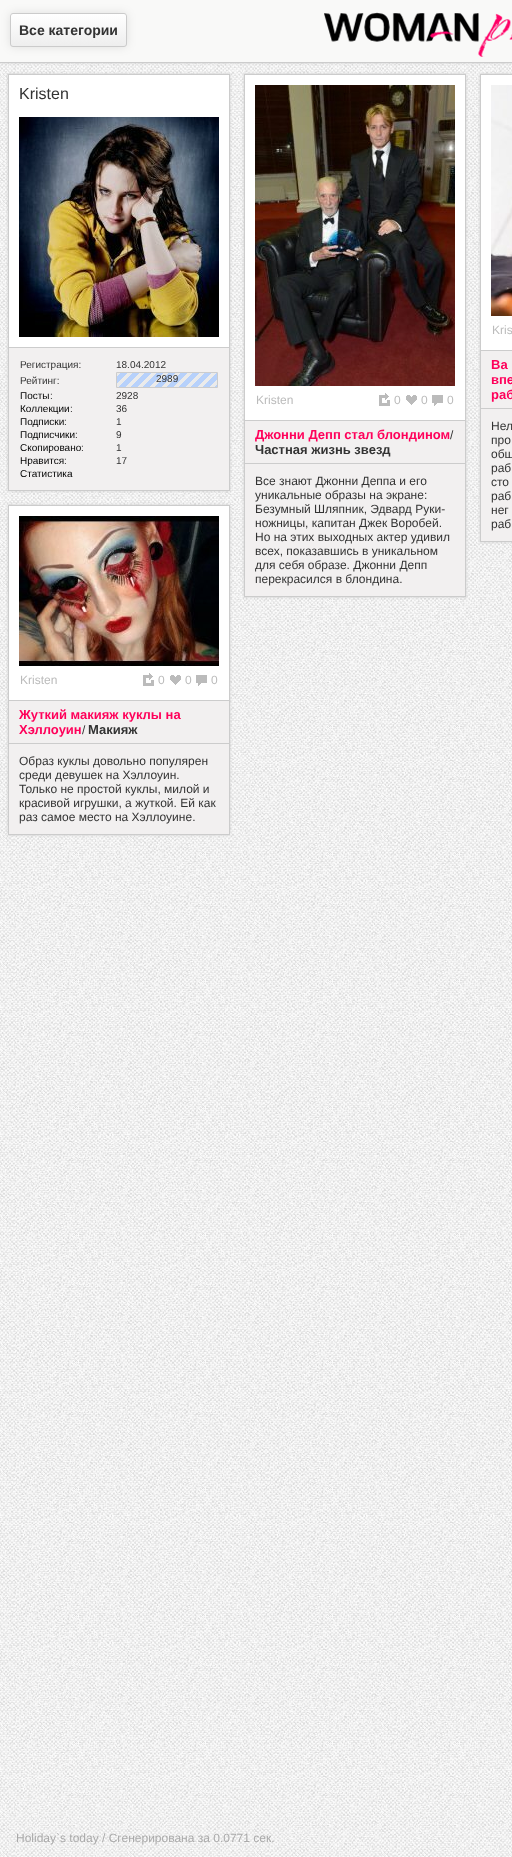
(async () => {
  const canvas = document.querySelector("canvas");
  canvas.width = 512;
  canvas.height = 1857;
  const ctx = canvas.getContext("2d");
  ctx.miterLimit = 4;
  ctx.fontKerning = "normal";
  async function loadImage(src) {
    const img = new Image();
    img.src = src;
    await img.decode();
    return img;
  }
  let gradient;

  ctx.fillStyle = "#ffffff";
  ctx.fillRect(0, 0, 512, 1857);
  ctx.drawImage(await loadImage("img/1.png"), 0, 63, 512, 1794);
  ctx.fillStyle = "#cccccc";
  ctx.filter = "blur(1.5px)";
  ctx.beginPath();
  ctx.rect(0, 0, 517, 63);
  ctx.fill();
  ctx.filter = "none";
  ctx.fillStyle = "#f9f9f8";
  ctx.fillRect(0, 0, 512, 62);
  ctx.fillStyle = "#cccccc";
  ctx.fillRect(0, 62, 512, 1);
  ctx.fillStyle = "rgba(0, 0, 0, 0.1)";
  ctx.filter = "blur(5px)";
  ctx.beginPath();
  ctx.roundRect(10, 13, 117, 34, 3);
  ctx.fill();
  ctx.filter = "none";
  ctx.save();
  ctx.beginPath();
  ctx.roundRect(10, 13, 117, 34, 3);
  ctx.clip();
  gradient = ctx.createLinearGradient(69, 14, 69, 46);
  gradient.addColorStop(0, "#ffffff");
  gradient.addColorStop(1, "#eeeeee");
  ctx.fillStyle = gradient;
  ctx.fillRect(10, 14, 117, 32);
  ctx.restore();
  ctx.beginPath();
  ctx.roundRect(10.5, 13.5, 116, 33, 2.5);
  ctx.strokeStyle = "#cbcbcb";
  ctx.stroke();
  ctx.drawImage(await loadImage("img/2.png"), 324, 12, 188, 45);
  ctx.fillStyle = "#cccccc";
  ctx.filter = "blur(1.5px)";
  ctx.beginPath();
  ctx.rect(8, 74, 222, 417);
  ctx.fill();
  ctx.filter = "none";
  ctx.fillStyle = "#f2f0f0";
  ctx.fillRect(9, 348, 220, 142);
  ctx.strokeStyle = "#cccccc";
  ctx.strokeRect(8.5, 74.5, 221, 416);
  ctx.fillStyle = "#ffffff";
  ctx.fillRect(9, 75, 220, 272);
  ctx.fillStyle = "#cccccc";
  ctx.fillRect(9, 347, 220, 1);
  ctx.drawImage(await loadImage("img/3.png"), 19, 117, 200, 220);
  ctx.fillStyle = "#ffffff";
  ctx.beginPath();
  ctx.rect(116.5, 372.5, 101, 15);
  ctx.fill();
  ctx.stroke();
  ctx.drawImage(await loadImage("img/4.png"), 117, 373, 100, 14);
  ctx.fillStyle = "#cccccc";
  ctx.filter = "blur(1.5px)";
  ctx.beginPath();
  ctx.rect(244, 74, 222, 523);
  ctx.fill();
  ctx.filter = "none";
  ctx.fillStyle = "#f2f0f0";
  ctx.fillRect(245, 421, 220, 175);
  ctx.strokeRect(244.5, 74.5, 221, 522);
  ctx.fillStyle = "#ffffff";
  ctx.fillRect(245, 75, 220, 345);
  ctx.fillStyle = "#cccccc";
  ctx.fillRect(245, 420, 220, 1);
  ctx.drawImage(await loadImage("img/5.png"), 255, 85, 200, 301);
  ctx.drawImage(await loadImage("img/6.png"), 379, 393, 11, 13);
  ctx.drawImage(await loadImage("img/7.png"), 406, 395, 11, 10);
  ctx.drawImage(await loadImage("img/8.png"), 432, 395, 11, 11);
  ctx.fillRect(245, 463, 220, 1);
  ctx.filter = "blur(1.5px)";
  ctx.beginPath();
  ctx.rect(480, 74, 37, 468);
  ctx.fill();
  ctx.filter = "none";
  ctx.fillStyle = "#f2f0f0";
  ctx.fillRect(481, 351, 31, 190);
  ctx.strokeRect(480.5, 74.5, 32, 467);
  ctx.fillStyle = "#ffffff";
  ctx.fillRect(481, 75, 31, 275);
  ctx.fillStyle = "#cccccc";
  ctx.fillRect(481, 350, 1, 1);
  ctx.drawImage(await loadImage("img/9.png"), 491, 85, 21, 231);
  ctx.fillRect(481, 408, 31, 1);
  ctx.filter = "blur(1.5px)";
  ctx.beginPath();
  ctx.rect(8, 505, 222, 330);
  ctx.fill();
  ctx.filter = "none";
  ctx.fillStyle = "#f2f0f0";
  ctx.fillRect(9, 701, 220, 133);
  ctx.strokeRect(8.5, 505.5, 221, 329);
  ctx.fillStyle = "#ffffff";
  ctx.fillRect(9, 506, 220, 194);
  ctx.fillStyle = "#cccccc";
  ctx.fillRect(9, 700, 220, 1);
  ctx.drawImage(await loadImage("img/10.png"), 19, 516, 200, 150);
  ctx.drawImage(await loadImage("img/6.png"), 143, 673, 11, 13);
  ctx.drawImage(await loadImage("img/7.png"), 170, 675, 11, 10);
  ctx.drawImage(await loadImage("img/8.png"), 196, 675, 11, 11);
  ctx.fillRect(9, 743, 220, 1);
  ctx.font = "bold 14px Liberation Sans";
  ctx.fillStyle = "#333333";
  ctx.fillText("Все категории", 19, 35);
  ctx.font = "16px Liberation Sans";
  ctx.fillText("Kristen", 19, 99);
  ctx.font = "10px Liberation Sans";
  for (const [text, x, y] of [
    ["Регистрация:", 20, 368],
    ["18.04.2012", 116, 368],
    ["Рейтинг:", 20, 384],
    ["2989", 156, 382],
  ]) {
    ctx.fillText(text, x, y);
  }
  ctx.fillStyle = "#000000";
  ctx.fillText("Посты", 20, 399);
  ctx.fillStyle = "#333333";
  ctx.fillText(":", 50, 399);
  ctx.fillText("2928", 116, 399);
  ctx.fillStyle = "#000000";
  ctx.fillText("Коллекции", 20, 412);
  ctx.fillStyle = "#333333";
  ctx.fillText(":", 70, 412);
  ctx.fillText("36", 116, 412);
  ctx.fillStyle = "#000000";
  ctx.fillText("Подписки", 20, 425);
  ctx.fillStyle = "#333333";
  ctx.fillText(":", 64, 425);
  ctx.fillText("1", 116, 425);
  ctx.fillStyle = "#000000";
  ctx.fillText("Подписчики", 20, 438);
  ctx.fillStyle = "#333333";
  ctx.fillText(":", 75, 438);
  ctx.fillText("9", 116, 438);
  ctx.fillStyle = "#000000";
  ctx.fillText("Скопировано", 20, 451);
  ctx.fillStyle = "#333333";
  ctx.fillText(":", 81, 451);
  ctx.fillText("1", 116, 451);
  ctx.fillStyle = "#000000";
  ctx.fillText("Нравится", 20, 464);
  ctx.fillStyle = "#333333";
  ctx.fillText(":", 64, 464);
  ctx.fillText("17", 116, 464);
  ctx.fillStyle = "#000000";
  ctx.fillText("Статистика", 20, 477);
  ctx.font = "12px Liberation Sans";
  ctx.fillStyle = "#bbbbbb";
  for (const [text, x, y] of [
    ["Kristen", 256, 404],
    ["0", 394, 404],
    ["0", 421, 404],
    ["0", 447, 404],
  ]) {
    ctx.fillText(text, x, y);
  }
  ctx.font = "bold 13px Liberation Sans";
  ctx.fillStyle = "#ff005a";
  ctx.fillText("Джонни Депп стал блондином", 255, 439);
  ctx.font = "12px Liberation Sans";
  ctx.fillStyle = "#333333";
  ctx.fillText("/", 450, 439);
  ctx.font = "bold 13px Liberation Sans";
  ctx.fillText("Частная жизнь звезд", 255, 454);
  ctx.font = "12px Liberation Sans";
  for (const [text, x, y] of [
    ["Все знают Джонни Деппа и его", 255, 485],
    ["уникальные образы на экране:", 255, 499],
    ["Безумный Шляпник, Эдвард Руки-", 255, 513],
    ["ножницы, капитан Джек Воробей.", 255, 527],
    ["Но на этих выходных актер удивил", 255, 541],
    ["всех, показавшись в уникальном", 255, 555],
    ["для себя образе. Джонни Депп", 255, 569],
    ["перекрасился в блондина.", 255, 583],
  ]) {
    ctx.fillText(text, x, y);
  }
  ctx.fillStyle = "#bbbbbb";
  ctx.fillText("Kris", 492, 334);
  ctx.font = "bold 13px Liberation Sans";
  ctx.fillStyle = "#ff005a";
  for (const [text, x, y] of [
    ["Ва", 491, 369],
    ["впе", 491, 384],
    ["раб", 491, 399],
  ]) {
    ctx.fillText(text, x, y);
  }
  ctx.font = "12px Liberation Sans";
  ctx.fillStyle = "#333333";
  for (const [text, x, y] of [
    ["Нел", 491, 430],
    ["про", 491, 444],
    ["общ", 491, 458],
    ["раб", 491, 472],
    ["сто", 491, 486],
    ["раб", 491, 500],
    ["нег", 491, 514],
    ["раб", 491, 528],
  ]) {
    ctx.fillText(text, x, y);
  }
  ctx.fillStyle = "#bbbbbb";
  for (const [text, x, y] of [
    ["Kristen", 20, 684],
    ["0", 158, 684],
    ["0", 185, 684],
    ["0", 211, 684],
  ]) {
    ctx.fillText(text, x, y);
  }
  ctx.font = "bold 13px Liberation Sans";
  ctx.fillStyle = "#ff005a";
  ctx.fillText("Жуткий макияж куклы на", 19, 719);
  ctx.fillText("Хэллоуин", 19, 734);
  ctx.font = "12px Liberation Sans";
  ctx.fillStyle = "#333333";
  ctx.fillText("/", 82, 734);
  ctx.font = "bold 13px Liberation Sans";
  ctx.fillText("Макияж", 88, 734);
  ctx.font = "12px Liberation Sans";
  for (const [text, x, y] of [
    ["Образ куклы довольно популярен", 19, 765],
    ["среди девушек на Хэллоуин.", 19, 779],
    ["Только не простой куклы, милой и", 19, 793],
    ["красивой игрушки, а жуткой. Ей как", 19, 807],
    ["раз самое место на Хэллоуине.", 19, 821],
  ]) {
    ctx.fillText(text, x, y);
  }
  ctx.fillStyle = "#aaaaaa";
  ctx.fillText("Holiday`s today / Сгенерирована за 0.0771 сек.", 16, 1842);
})();
